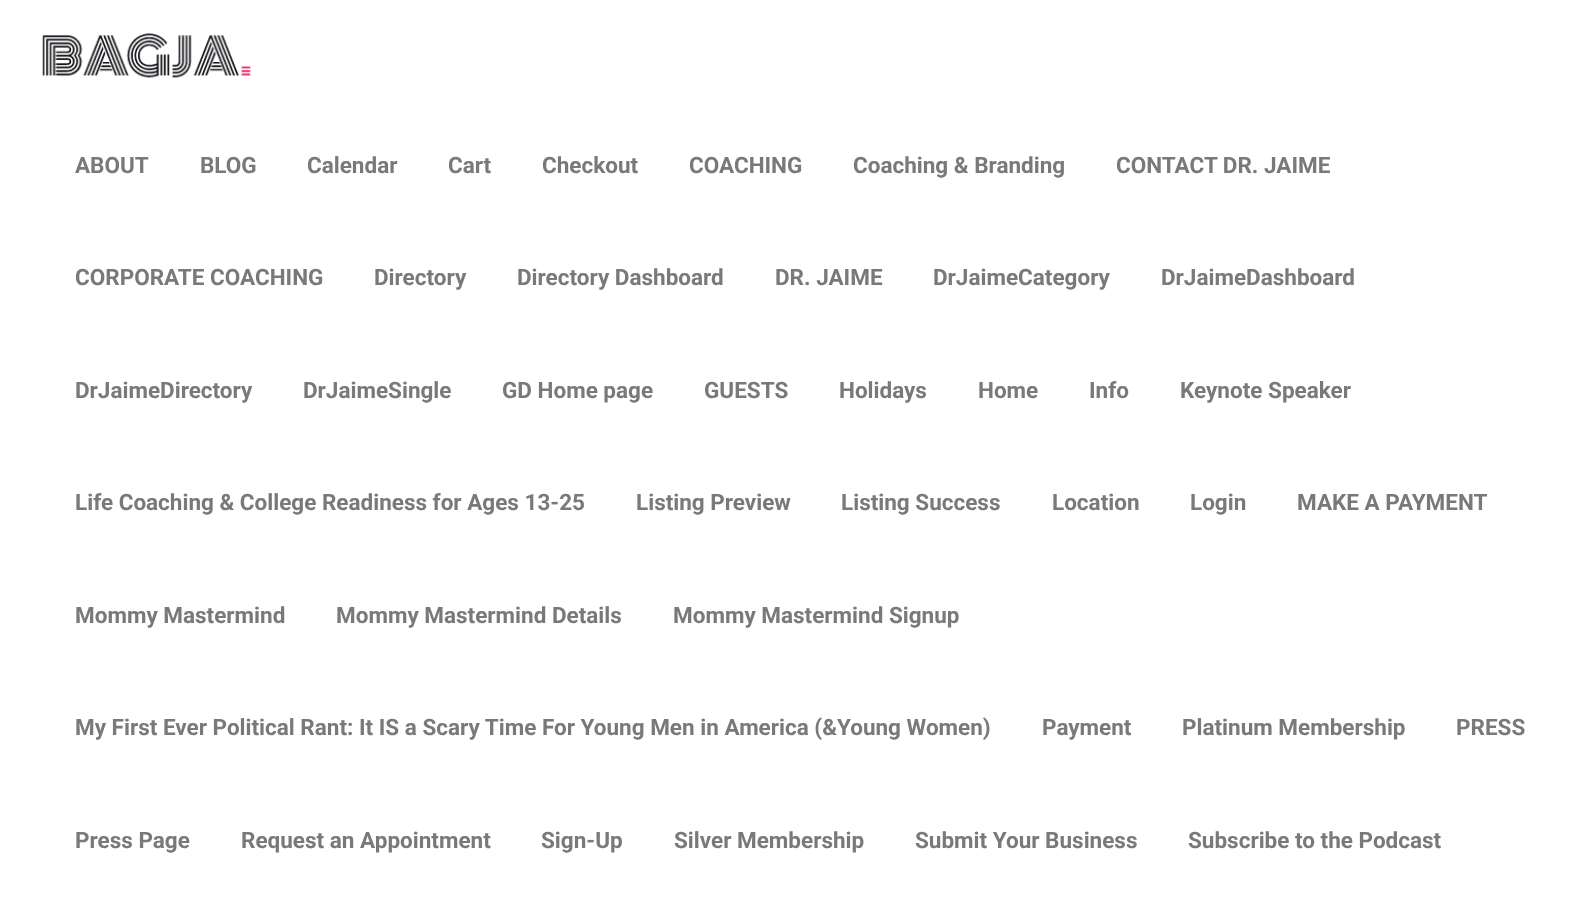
(async () => {
  const canvas = document.querySelector("canvas");
  canvas.width = 1585;
  canvas.height = 911;
  const ctx = canvas.getContext("2d");
  ctx.miterLimit = 4;
  ctx.fontKerning = "normal";
  async function loadImage(src) {
    const img = new Image();
    img.src = src;
    await img.decode();
    return img;
  }

  ctx.fillStyle = "#ffffff";
  ctx.fillRect(0, 0, 1585, 911);
  ctx.drawImage(await loadImage("img/1.png"), 42, 33, 209, 45);
  ctx.font = "bold 22.5px Roboto";
  ctx.fillStyle = "#797979";
  for (const [text, x, y] of [
    ["ABOUT", 75, 173],
    ["BLOG", 200, 173],
    ["Calendar", 307, 173],
    ["Cart", 448, 173],
    ["Checkout", 542, 173],
    ["COACHING", 689, 173],
    ["Coaching & Branding", 853, 173],
    ["CONTACT DR. JAIME", 1116, 173],
    ["CORPORATE COACHING", 75, 285],
    ["Directory", 374, 285],
    ["Directory Dashboard", 517, 285],
    ["DR. JAIME", 775, 285],
    ["DrJaimeCategory", 933, 285],
    ["DrJaimeDashboard", 1161, 285],
    ["DrJaimeDirectory", 75, 398],
    ["DrJaimeSingle", 303, 398],
    ["GD Home page", 502, 398],
    ["GUESTS", 704, 398],
    ["Holidays", 839, 398],
    ["Home", 978, 398],
    ["Info", 1089, 398],
    ["Keynote Speaker", 1180, 398],
    ["Life Coaching & College Readiness for Ages 13-25", 75, 510],
    ["Listing Preview", 636, 510],
    ["Listing Success", 841, 510],
    ["Location", 1052, 510],
    ["Login", 1190, 510],
    ["MAKE A PAYMENT", 1297, 510],
    ["Mommy Mastermind", 75, 623],
    ["Mommy Mastermind Details", 336, 623],
    ["Mommy Mastermind Signup", 673, 623],
    ["My First Ever Political Rant: It IS a Scary Time For Young Men in America (&Young Women)", 75, 735],
    ["Payment", 1042, 735],
    ["Platinum Membership", 1182, 735],
    ["PRESS", 1456, 735],
    ["Press Page", 75, 848],
    ["Request an Appointment", 241, 848],
    ["Sign-Up", 541, 848],
    ["Silver Membership", 674, 848],
    ["Submit Your Business", 915, 848],
    ["Subscribe to the Podcast", 1188, 848],
  ]) {
    ctx.fillText(text, x, y);
  }
})();
